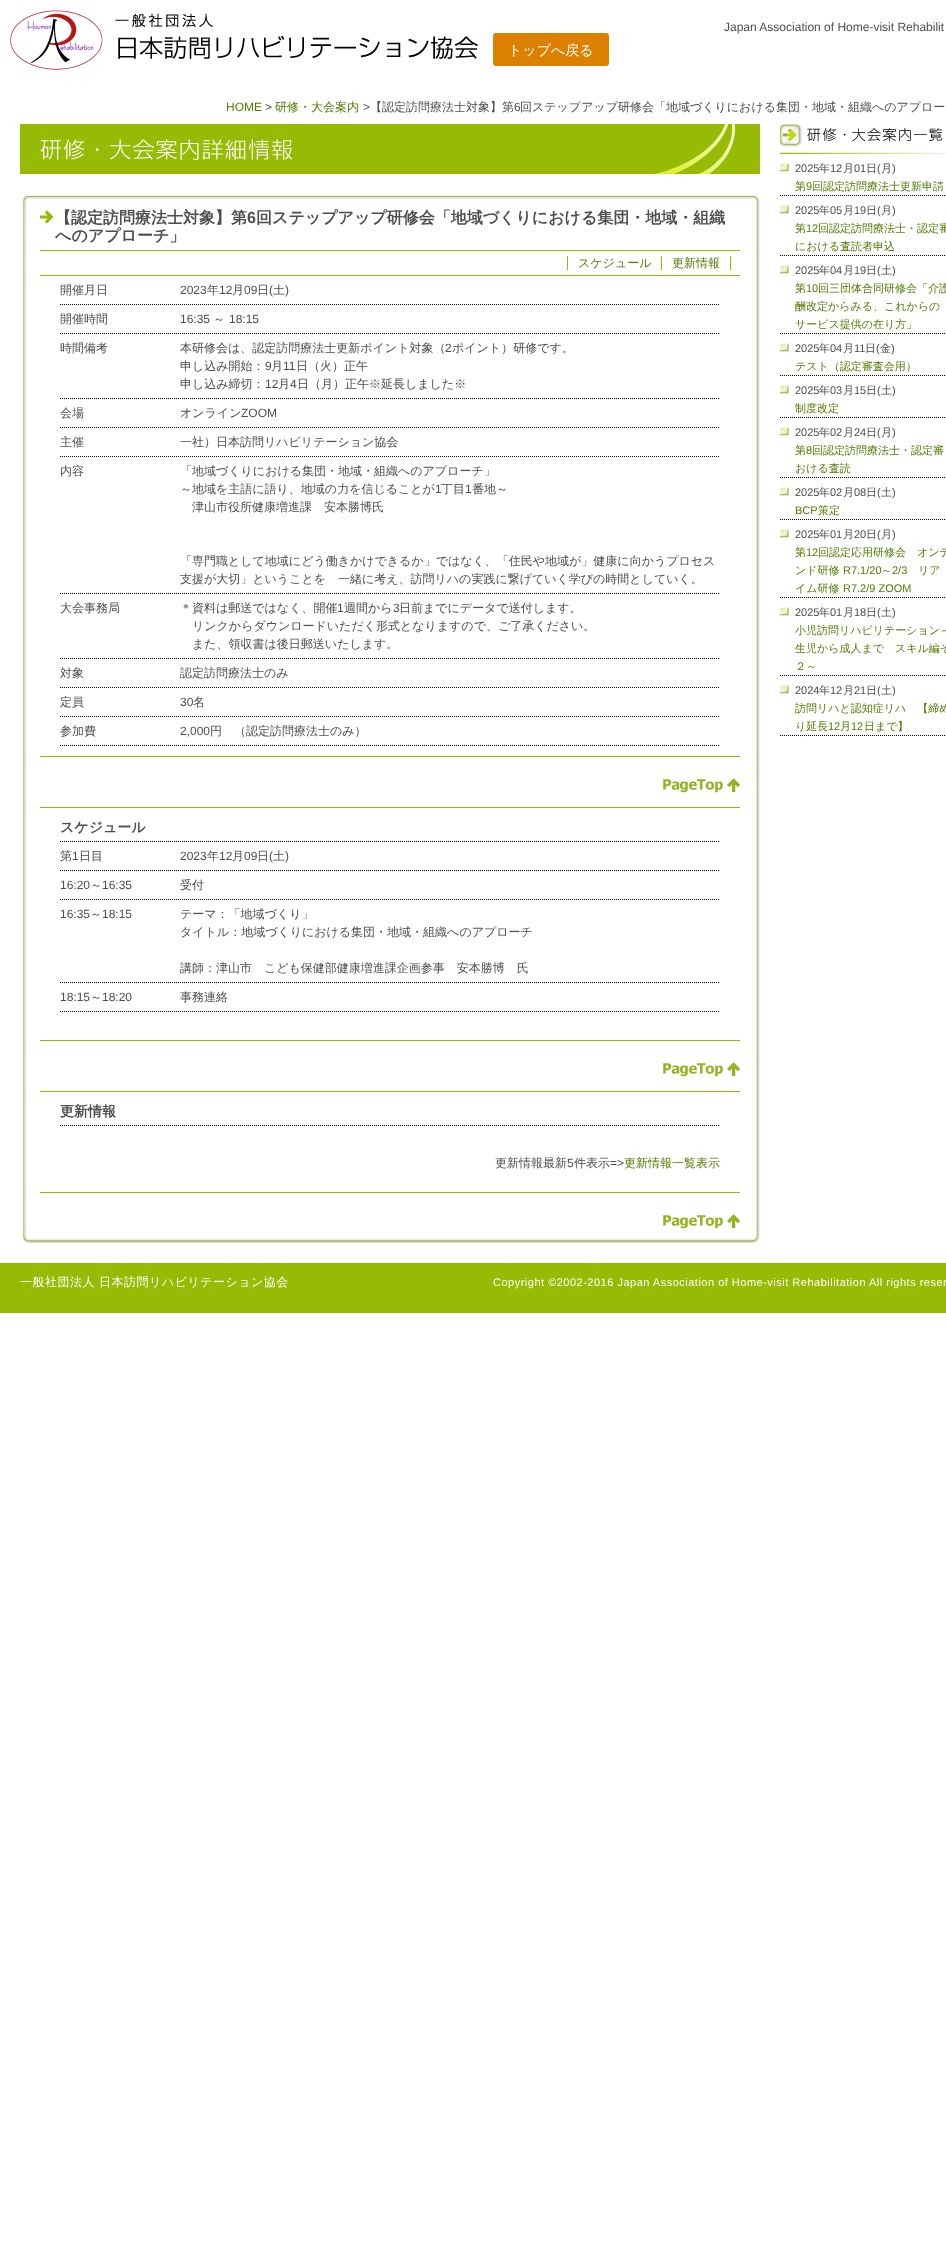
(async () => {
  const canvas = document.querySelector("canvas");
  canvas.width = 946;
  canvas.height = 2265;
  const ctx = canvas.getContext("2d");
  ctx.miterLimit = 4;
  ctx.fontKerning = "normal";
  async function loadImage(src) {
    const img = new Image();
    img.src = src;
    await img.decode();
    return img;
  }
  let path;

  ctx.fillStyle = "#ffffff";
  ctx.fillRect(0, 0, 946, 2265);
  ctx.drawImage(await loadImage("img/1.png"), 10, 10, 468, 60);
  ctx.fillStyle = "#dc8000";
  ctx.beginPath();
  ctx.roundRect(493, 33, 116, 33, 3);
  ctx.fill();
  ctx.drawImage(await loadImage("img/2.png"), 20, 124, 740, 50);
  ctx.drawImage(await loadImage("img/3.png"), 22, 195, 738, 1041);
  ctx.drawImage(await loadImage("img/4.png"), 40, 210, 14, 14);
  for (const [x, y, w, h, color] of [
    [40, 250, 700, 1, "#97bb04"],
    [661, 256, 1, 14, "#97bb04"],
    [567, 256, 1, 14, "#97bb04"],
    [730, 256, 1, 14, "#97bb04"],
    [40, 275, 700, 1, "#97bb04"],
    [40, 756, 700, 1, "#97bb04"],
  ]) {
    ctx.fillStyle = color;
    ctx.fillRect(x, y, w, h);
  }
  path = new Path2D("M60 304.5H180");
  ctx.strokeStyle = "#050304";
  ctx.setLineDash([1, 1]);
  ctx.stroke(path);
  path = new Path2D("M180 304.5H720");
  ctx.stroke(path);
  path = new Path2D("M60 333.5H180");
  ctx.stroke(path);
  path = new Path2D("M180 333.5H720");
  ctx.stroke(path);
  path = new Path2D("M60 398.5H180");
  ctx.stroke(path);
  path = new Path2D("M180 398.5H720");
  ctx.stroke(path);
  path = new Path2D("M60 427.5H180");
  ctx.stroke(path);
  path = new Path2D("M180 427.5H720");
  ctx.stroke(path);
  path = new Path2D("M60 456.5H180");
  ctx.stroke(path);
  path = new Path2D("M180 456.5H720");
  ctx.stroke(path);
  path = new Path2D("M60 593.5H180");
  ctx.stroke(path);
  path = new Path2D("M180 593.5H720");
  ctx.stroke(path);
  path = new Path2D("M60 658.5H180");
  ctx.stroke(path);
  path = new Path2D("M180 658.5H720");
  ctx.stroke(path);
  path = new Path2D("M60 687.5H180");
  ctx.stroke(path);
  path = new Path2D("M180 687.5H720");
  ctx.stroke(path);
  path = new Path2D("M60 716.5H180");
  ctx.stroke(path);
  path = new Path2D("M180 716.5H720");
  ctx.stroke(path);
  path = new Path2D("M60 745.5H180");
  ctx.stroke(path);
  path = new Path2D("M180 745.5H720");
  ctx.stroke(path);
  ctx.drawImage(await loadImage("img/5.png"), 663, 778, 77, 15);
  ctx.fillRect(40, 807, 700, 1);
  ctx.fillRect(40, 1040, 700, 1);
  path = new Path2D("M60 841.5H180");
  ctx.stroke(path);
  path = new Path2D("M180 841.5H720");
  ctx.stroke(path);
  path = new Path2D("M60 870.5H180");
  ctx.stroke(path);
  path = new Path2D("M180 870.5H720");
  ctx.stroke(path);
  path = new Path2D("M60 899.5H180");
  ctx.stroke(path);
  path = new Path2D("M180 899.5H720");
  ctx.stroke(path);
  path = new Path2D("M60 982.5H180");
  ctx.stroke(path);
  path = new Path2D("M180 982.5H720");
  ctx.stroke(path);
  path = new Path2D("M60 1011.5H180");
  ctx.stroke(path);
  path = new Path2D("M180 1011.5H720");
  ctx.stroke(path);
  ctx.drawImage(await loadImage("img/5.png"), 663, 1062, 77, 15);
  ctx.fillRect(40, 1091, 700, 1);
  ctx.fillRect(40, 1192, 700, 1);
  path = new Path2D("M60 1125.5H180");
  ctx.stroke(path);
  path = new Path2D("M180 1125.5H720");
  ctx.stroke(path);
  ctx.drawImage(await loadImage("img/6.png"), 22, 1236, 738, 7);
  ctx.drawImage(await loadImage("img/5.png"), 663, 1214, 77, 15);
  ctx.drawImage(await loadImage("img/7.png"), 780, 124, 166, 30);
  ctx.drawImage(await loadImage("img/8.png"), 780, 163, 9, 9);
  path = new Path2D("M780 195.5H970");
  ctx.stroke(path);
  ctx.drawImage(await loadImage("img/8.png"), 780, 205, 9, 9);
  path = new Path2D("M780 255.5H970");
  ctx.stroke(path);
  ctx.drawImage(await loadImage("img/8.png"), 780, 265, 9, 9);
  path = new Path2D("M780 333.5H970");
  ctx.stroke(path);
  ctx.drawImage(await loadImage("img/8.png"), 780, 343, 9, 9);
  path = new Path2D("M780 375.5H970");
  ctx.stroke(path);
  ctx.drawImage(await loadImage("img/8.png"), 780, 385, 9, 9);
  path = new Path2D("M780 417.5H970");
  ctx.stroke(path);
  ctx.drawImage(await loadImage("img/8.png"), 780, 427, 9, 9);
  path = new Path2D("M780 477.5H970");
  ctx.stroke(path);
  ctx.drawImage(await loadImage("img/8.png"), 780, 487, 9, 9);
  path = new Path2D("M780 519.5H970");
  ctx.stroke(path);
  ctx.drawImage(await loadImage("img/8.png"), 780, 529, 9, 9);
  path = new Path2D("M780 597.5H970");
  ctx.stroke(path);
  ctx.drawImage(await loadImage("img/8.png"), 780, 607, 9, 9);
  path = new Path2D("M780 675.5H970");
  ctx.stroke(path);
  ctx.drawImage(await loadImage("img/8.png"), 780, 685, 9, 9);
  path = new Path2D("M780 735.5H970");
  ctx.stroke(path);
  ctx.fillRect(0, 1263, 946, 50);
  ctx.font = "12px Liberation Sans";
  ctx.fillStyle = "#4d4d4d";
  ctx.fillText("Japan Association of Home-visit Rehabilit", 724, 31);
  ctx.font = "500 14px WenQuanYi Zen Hei";
  ctx.fillStyle = "#ffffff";
  ctx.fillText("トップへ戻る", 508, 55);
  ctx.font = "12px Liberation Sans";
  ctx.fillStyle = "#507b00";
  ctx.fillText("HOME", 226, 111);
  ctx.fillStyle = "#4d4d4d";
  ctx.fillText(">", 265, 111);
  ctx.font = "500 12px WenQuanYi Zen Hei";
  ctx.fillStyle = "#507b00";
  ctx.fillText("研修・大会案内", 275, 111);
  ctx.font = "12px Liberation Sans";
  ctx.fillStyle = "#4d4d4d";
  ctx.fillText(">", 363, 111);
  ctx.font = "500 12px WenQuanYi Zen Hei";
  ctx.fillText("【認定訪問療法士対象】第", 370, 111);
  ctx.font = "12px Liberation Sans";
  ctx.fillText("6", 514, 111);
  ctx.font = "500 12px WenQuanYi Zen Hei";
  ctx.fillText("回ステップアップ研修会「地域づくりにおける集団・地域・組織へのアプロー", 520, 111);
  ctx.font = "bold 16px WenQuanYi Zen Hei";
  ctx.fillText("【認定訪問療法士対象】第", 55, 223);
  ctx.font = "bold 16px Liberation Sans";
  ctx.fillText("6", 247, 223);
  ctx.font = "bold 16px WenQuanYi Zen Hei";
  ctx.fillText("回ステップアップ研修会「地域づくりにおける集団・地域・組織", 256, 223);
  ctx.fillText("へのアプローチ」", 55, 241);
  ctx.font = "500 12px WenQuanYi Zen Hei";
  ctx.fillStyle = "#507b00";
  ctx.fillText("スケジュール", 578, 267);
  ctx.fillText("更新情報", 672, 267);
  ctx.fillStyle = "#4d4d4d";
  ctx.fillText("開催月日", 60, 294);
  ctx.font = "12px Liberation Sans";
  ctx.fillText("2023", 180, 294);
  ctx.font = "500 12px WenQuanYi Zen Hei";
  ctx.fillText("年", 207, 294);
  ctx.font = "12px Liberation Sans";
  ctx.fillText("12", 219, 294);
  ctx.font = "500 12px WenQuanYi Zen Hei";
  ctx.fillText("月", 232, 294);
  ctx.font = "12px Liberation Sans";
  ctx.fillText("09", 244, 294);
  ctx.font = "500 12px WenQuanYi Zen Hei";
  ctx.fillText("日", 257, 294);
  ctx.font = "12px Liberation Sans";
  ctx.fillText("(", 269, 294);
  ctx.font = "500 12px WenQuanYi Zen Hei";
  ctx.fillText("土", 273, 294);
  ctx.font = "12px Liberation Sans";
  ctx.fillText(")", 285, 294);
  ctx.font = "500 12px WenQuanYi Zen Hei";
  ctx.fillText("開催時間", 60, 323);
  ctx.font = "12px Liberation Sans";
  ctx.fillText("16:35", 180, 323);
  ctx.font = "500 12px WenQuanYi Zen Hei";
  ctx.fillText("～", 213, 323);
  ctx.font = "12px Liberation Sans";
  ctx.fillText("18:15", 229, 323);
  ctx.font = "500 12px WenQuanYi Zen Hei";
  ctx.fillText("時間備考", 60, 352);
  ctx.fillText("本研修会は、認定訪問療法士更新ポイント対象（", 180, 352);
  ctx.font = "12px Liberation Sans";
  ctx.fillText("2", 445, 352);
  ctx.font = "500 12px WenQuanYi Zen Hei";
  ctx.fillText("ポイント）研修です。", 452, 352);
  ctx.fillText("申し込み開始：", 180, 370);
  ctx.font = "12px Liberation Sans";
  ctx.fillText("9", 265, 370);
  ctx.font = "500 12px WenQuanYi Zen Hei";
  ctx.fillText("月", 271, 370);
  ctx.font = "12px Liberation Sans";
  ctx.fillText("11", 283, 370);
  ctx.font = "500 12px WenQuanYi Zen Hei";
  ctx.fillText("日（火）正午", 296, 370);
  ctx.fillText("申し込み締切：", 180, 388);
  ctx.font = "12px Liberation Sans";
  ctx.fillText("12", 265, 388);
  ctx.font = "500 12px WenQuanYi Zen Hei";
  ctx.fillText("月", 278, 388);
  ctx.font = "12px Liberation Sans";
  ctx.fillText("4", 290, 388);
  ctx.font = "500 12px WenQuanYi Zen Hei";
  for (const [text, x, y] of [
    ["日（月）正午※延長しました※", 297, 388],
    ["会場", 60, 417],
    ["オンライン", 180, 417],
  ]) {
    ctx.fillText(text, x, y);
  }
  ctx.font = "12px Liberation Sans";
  ctx.fillText("ZOOM", 241, 417);
  ctx.font = "500 12px WenQuanYi Zen Hei";
  for (const [text, x, y] of [
    ["主催", 60, 446],
    ["一社）日本訪問リハビリテーション協会", 180, 446],
    ["内容", 60, 475],
    ["「地域づくりにおける集団・地域・組織へのアプローチ」", 180, 475],
    ["～地域を主語に語り、地域の力を信じることが", 180, 493],
  ]) {
    ctx.fillText(text, x, y);
  }
  ctx.font = "12px Liberation Sans";
  ctx.fillText("1", 435, 493);
  ctx.font = "500 12px WenQuanYi Zen Hei";
  ctx.fillText("丁目", 441, 493);
  ctx.font = "12px Liberation Sans";
  ctx.fillText("1", 465, 493);
  ctx.font = "500 12px WenQuanYi Zen Hei";
  for (const [text, x, y] of [
    ["番地～", 472, 493],
    ["津山市役所健康増進課　安本勝博氏", 192, 511],
    ["「専門職として地域にどう働きかけできるか」ではなく、「住民や地域が」健康に向かうプロセス", 180, 565],
    ["支援が大切」ということを　一緒に考え、訪問リハの実践に繋げていく学びの時間としていく。", 180, 583],
    ["大会事務局", 60, 612],
    ["＊資料は郵送ではなく、開催", 180, 612],
  ]) {
    ctx.fillText(text, x, y);
  }
  ctx.font = "12px Liberation Sans";
  ctx.fillText("1", 337, 612);
  ctx.font = "500 12px WenQuanYi Zen Hei";
  ctx.fillText("週間から", 344, 612);
  ctx.font = "12px Liberation Sans";
  ctx.fillText("3", 393, 612);
  ctx.font = "500 12px WenQuanYi Zen Hei";
  for (const [text, x, y] of [
    ["日前までにデータで送付します。", 399, 612],
    ["リンクからダウンロードいただく形式となりますので、ご了承ください。", 192, 630],
    ["また、領収書は後日郵送いたします。", 192, 648],
    ["対象", 60, 677],
    ["認定訪問療法士のみ", 180, 677],
    ["定員", 60, 706],
  ]) {
    ctx.fillText(text, x, y);
  }
  ctx.font = "12px Liberation Sans";
  ctx.fillText("30", 180, 706);
  ctx.font = "500 12px WenQuanYi Zen Hei";
  ctx.fillText("名", 193, 706);
  ctx.fillText("参加費", 60, 735);
  ctx.font = "12px Liberation Sans";
  ctx.fillText("2,000", 180, 735);
  ctx.font = "500 12px WenQuanYi Zen Hei";
  ctx.fillText("円　（認定訪問療法士のみ）", 210, 735);
  ctx.font = "bold 14px WenQuanYi Zen Hei";
  ctx.fillText("スケジュール", 60, 832);
  ctx.font = "500 12px WenQuanYi Zen Hei";
  ctx.fillText("第", 60, 860);
  ctx.font = "12px Liberation Sans";
  ctx.fillText("1", 72, 860);
  ctx.font = "500 12px WenQuanYi Zen Hei";
  ctx.fillText("日目", 79, 860);
  ctx.font = "12px Liberation Sans";
  ctx.fillText("2023", 180, 860);
  ctx.font = "500 12px WenQuanYi Zen Hei";
  ctx.fillText("年", 207, 860);
  ctx.font = "12px Liberation Sans";
  ctx.fillText("12", 219, 860);
  ctx.font = "500 12px WenQuanYi Zen Hei";
  ctx.fillText("月", 232, 860);
  ctx.font = "12px Liberation Sans";
  ctx.fillText("09", 244, 860);
  ctx.font = "500 12px WenQuanYi Zen Hei";
  ctx.fillText("日", 257, 860);
  ctx.font = "12px Liberation Sans";
  ctx.fillText("(", 269, 860);
  ctx.font = "500 12px WenQuanYi Zen Hei";
  ctx.fillText("土", 273, 860);
  ctx.font = "12px Liberation Sans";
  ctx.fillText(")", 285, 860);
  ctx.fillText("16:20", 60, 889);
  ctx.font = "500 12px WenQuanYi Zen Hei";
  ctx.fillText("～", 90, 889);
  ctx.font = "12px Liberation Sans";
  ctx.fillText("16:35", 102, 889);
  ctx.font = "500 12px WenQuanYi Zen Hei";
  ctx.fillText("受付", 180, 889);
  ctx.font = "12px Liberation Sans";
  ctx.fillText("16:35", 60, 918);
  ctx.font = "500 12px WenQuanYi Zen Hei";
  ctx.fillText("～", 90, 918);
  ctx.font = "12px Liberation Sans";
  ctx.fillText("18:15", 102, 918);
  ctx.font = "500 12px WenQuanYi Zen Hei";
  for (const [text, x, y] of [
    ["テーマ：「地域づくり」", 180, 918],
    ["タイトル：地域づくりにおける集団・地域・組織へのアプローチ", 180, 936],
    ["講師：津山市　こども保健部健康増進課企画参事　安本勝博　氏", 180, 972],
  ]) {
    ctx.fillText(text, x, y);
  }
  ctx.font = "12px Liberation Sans";
  ctx.fillText("18:15", 60, 1001);
  ctx.font = "500 12px WenQuanYi Zen Hei";
  ctx.fillText("～", 90, 1001);
  ctx.font = "12px Liberation Sans";
  ctx.fillText("18:20", 102, 1001);
  ctx.font = "500 12px WenQuanYi Zen Hei";
  ctx.fillText("事務連絡", 180, 1001);
  ctx.font = "bold 14px WenQuanYi Zen Hei";
  ctx.fillText("更新情報", 60, 1116);
  ctx.font = "500 12px WenQuanYi Zen Hei";
  ctx.fillText("更新情報最新", 495, 1167);
  ctx.font = "12px Liberation Sans";
  ctx.fillText("5", 567, 1167);
  ctx.font = "500 12px WenQuanYi Zen Hei";
  ctx.fillText("件表示", 574, 1167);
  ctx.font = "12px Liberation Sans";
  ctx.fillText("=>", 610, 1167);
  ctx.font = "500 12px WenQuanYi Zen Hei";
  ctx.fillStyle = "#507b00";
  ctx.fillText("更新情報一覧表示", 624, 1167);
  ctx.font = "11px Liberation Sans";
  ctx.fillStyle = "#4d4d4d";
  ctx.fillText("2025", 795, 172);
  ctx.font = "500 11px WenQuanYi Zen Hei";
  ctx.fillText("年", 819, 172);
  ctx.font = "11px Liberation Sans";
  ctx.fillText("12", 830, 172);
  ctx.font = "500 11px WenQuanYi Zen Hei";
  ctx.fillText("月", 843, 172);
  ctx.font = "11px Liberation Sans";
  ctx.fillText("01", 854, 172);
  ctx.font = "500 11px WenQuanYi Zen Hei";
  ctx.fillText("日", 866, 172);
  ctx.font = "11px Liberation Sans";
  ctx.fillText("(", 877, 172);
  ctx.font = "500 11px WenQuanYi Zen Hei";
  ctx.fillText("月", 881, 172);
  ctx.font = "11px Liberation Sans";
  ctx.fillText(")", 892, 172);
  ctx.font = "500 11px WenQuanYi Zen Hei";
  ctx.fillStyle = "#507b00";
  ctx.fillText("第", 795, 190);
  ctx.font = "11px Liberation Sans";
  ctx.fillText("9", 806, 190);
  ctx.font = "500 11px WenQuanYi Zen Hei";
  ctx.fillText("回認定訪問療法士更新申請", 812, 190);
  ctx.font = "11px Liberation Sans";
  ctx.fillStyle = "#4d4d4d";
  ctx.fillText("2025", 795, 214);
  ctx.font = "500 11px WenQuanYi Zen Hei";
  ctx.fillText("年", 819, 214);
  ctx.font = "11px Liberation Sans";
  ctx.fillText("05", 830, 214);
  ctx.font = "500 11px WenQuanYi Zen Hei";
  ctx.fillText("月", 843, 214);
  ctx.font = "11px Liberation Sans";
  ctx.fillText("19", 854, 214);
  ctx.font = "500 11px WenQuanYi Zen Hei";
  ctx.fillText("日", 866, 214);
  ctx.font = "11px Liberation Sans";
  ctx.fillText("(", 877, 214);
  ctx.font = "500 11px WenQuanYi Zen Hei";
  ctx.fillText("月", 881, 214);
  ctx.font = "11px Liberation Sans";
  ctx.fillText(")", 892, 214);
  ctx.font = "500 11px WenQuanYi Zen Hei";
  ctx.fillStyle = "#507b00";
  ctx.fillText("第", 795, 232);
  ctx.font = "11px Liberation Sans";
  ctx.fillText("12", 806, 232);
  ctx.font = "500 11px WenQuanYi Zen Hei";
  ctx.fillText("回認定訪問療法士・認定審", 818, 232);
  ctx.fillText("における査読者申込", 795, 250);
  ctx.font = "11px Liberation Sans";
  ctx.fillStyle = "#4d4d4d";
  ctx.fillText("2025", 795, 274);
  ctx.font = "500 11px WenQuanYi Zen Hei";
  ctx.fillText("年", 819, 274);
  ctx.font = "11px Liberation Sans";
  ctx.fillText("04", 830, 274);
  ctx.font = "500 11px WenQuanYi Zen Hei";
  ctx.fillText("月", 843, 274);
  ctx.font = "11px Liberation Sans";
  ctx.fillText("19", 854, 274);
  ctx.font = "500 11px WenQuanYi Zen Hei";
  ctx.fillText("日", 866, 274);
  ctx.font = "11px Liberation Sans";
  ctx.fillText("(", 877, 274);
  ctx.font = "500 11px WenQuanYi Zen Hei";
  ctx.fillText("土", 881, 274);
  ctx.font = "11px Liberation Sans";
  ctx.fillText(")", 892, 274);
  ctx.font = "500 11px WenQuanYi Zen Hei";
  ctx.fillStyle = "#507b00";
  ctx.fillText("第", 795, 292);
  ctx.font = "11px Liberation Sans";
  ctx.fillText("10", 806, 292);
  ctx.font = "500 11px WenQuanYi Zen Hei";
  for (const [text, x, y] of [
    ["回三団体合同研修会「介護", 818, 292],
    ["酬改定からみる、これからの", 795, 310],
    ["サービス提供の在り方」", 795, 328],
  ]) {
    ctx.fillText(text, x, y);
  }
  ctx.font = "11px Liberation Sans";
  ctx.fillStyle = "#4d4d4d";
  ctx.fillText("2025", 795, 352);
  ctx.font = "500 11px WenQuanYi Zen Hei";
  ctx.fillText("年", 819, 352);
  ctx.font = "11px Liberation Sans";
  ctx.fillText("04", 830, 352);
  ctx.font = "500 11px WenQuanYi Zen Hei";
  ctx.fillText("月", 843, 352);
  ctx.font = "11px Liberation Sans";
  ctx.fillText("11", 854, 352);
  ctx.font = "500 11px WenQuanYi Zen Hei";
  ctx.fillText("日", 865, 352);
  ctx.font = "11px Liberation Sans";
  ctx.fillText("(", 876, 352);
  ctx.font = "500 11px WenQuanYi Zen Hei";
  ctx.fillText("金", 880, 352);
  ctx.font = "11px Liberation Sans";
  ctx.fillText(")", 891, 352);
  ctx.font = "500 11px WenQuanYi Zen Hei";
  ctx.fillStyle = "#507b00";
  ctx.fillText("テスト（認定審査会用）", 795, 370);
  ctx.font = "11px Liberation Sans";
  ctx.fillStyle = "#4d4d4d";
  ctx.fillText("2025", 795, 394);
  ctx.font = "500 11px WenQuanYi Zen Hei";
  ctx.fillText("年", 819, 394);
  ctx.font = "11px Liberation Sans";
  ctx.fillText("03", 830, 394);
  ctx.font = "500 11px WenQuanYi Zen Hei";
  ctx.fillText("月", 843, 394);
  ctx.font = "11px Liberation Sans";
  ctx.fillText("15", 854, 394);
  ctx.font = "500 11px WenQuanYi Zen Hei";
  ctx.fillText("日", 866, 394);
  ctx.font = "11px Liberation Sans";
  ctx.fillText("(", 877, 394);
  ctx.font = "500 11px WenQuanYi Zen Hei";
  ctx.fillText("土", 881, 394);
  ctx.font = "11px Liberation Sans";
  ctx.fillText(")", 892, 394);
  ctx.font = "500 11px WenQuanYi Zen Hei";
  ctx.fillStyle = "#507b00";
  ctx.fillText("制度改定", 795, 412);
  ctx.font = "11px Liberation Sans";
  ctx.fillStyle = "#4d4d4d";
  ctx.fillText("2025", 795, 436);
  ctx.font = "500 11px WenQuanYi Zen Hei";
  ctx.fillText("年", 819, 436);
  ctx.font = "11px Liberation Sans";
  ctx.fillText("02", 830, 436);
  ctx.font = "500 11px WenQuanYi Zen Hei";
  ctx.fillText("月", 843, 436);
  ctx.font = "11px Liberation Sans";
  ctx.fillText("24", 854, 436);
  ctx.font = "500 11px WenQuanYi Zen Hei";
  ctx.fillText("日", 866, 436);
  ctx.font = "11px Liberation Sans";
  ctx.fillText("(", 877, 436);
  ctx.font = "500 11px WenQuanYi Zen Hei";
  ctx.fillText("月", 881, 436);
  ctx.font = "11px Liberation Sans";
  ctx.fillText(")", 892, 436);
  ctx.font = "500 11px WenQuanYi Zen Hei";
  ctx.fillStyle = "#507b00";
  ctx.fillText("第", 795, 454);
  ctx.font = "11px Liberation Sans";
  ctx.fillText("8", 806, 454);
  ctx.font = "500 11px WenQuanYi Zen Hei";
  ctx.fillText("回認定訪問療法士・認定審", 812, 454);
  ctx.fillText("おける査読", 795, 472);
  ctx.font = "11px Liberation Sans";
  ctx.fillStyle = "#4d4d4d";
  ctx.fillText("2025", 795, 496);
  ctx.font = "500 11px WenQuanYi Zen Hei";
  ctx.fillText("年", 819, 496);
  ctx.font = "11px Liberation Sans";
  ctx.fillText("02", 830, 496);
  ctx.font = "500 11px WenQuanYi Zen Hei";
  ctx.fillText("月", 843, 496);
  ctx.font = "11px Liberation Sans";
  ctx.fillText("08", 854, 496);
  ctx.font = "500 11px WenQuanYi Zen Hei";
  ctx.fillText("日", 866, 496);
  ctx.font = "11px Liberation Sans";
  ctx.fillText("(", 877, 496);
  ctx.font = "500 11px WenQuanYi Zen Hei";
  ctx.fillText("土", 881, 496);
  ctx.font = "11px Liberation Sans";
  ctx.fillText(")", 892, 496);
  ctx.fillStyle = "#507b00";
  ctx.fillText("BCP", 795, 514);
  ctx.font = "500 11px WenQuanYi Zen Hei";
  ctx.fillText("策定", 818, 514);
  ctx.font = "11px Liberation Sans";
  ctx.fillStyle = "#4d4d4d";
  ctx.fillText("2025", 795, 538);
  ctx.font = "500 11px WenQuanYi Zen Hei";
  ctx.fillText("年", 819, 538);
  ctx.font = "11px Liberation Sans";
  ctx.fillText("01", 830, 538);
  ctx.font = "500 11px WenQuanYi Zen Hei";
  ctx.fillText("月", 843, 538);
  ctx.font = "11px Liberation Sans";
  ctx.fillText("20", 854, 538);
  ctx.font = "500 11px WenQuanYi Zen Hei";
  ctx.fillText("日", 866, 538);
  ctx.font = "11px Liberation Sans";
  ctx.fillText("(", 877, 538);
  ctx.font = "500 11px WenQuanYi Zen Hei";
  ctx.fillText("月", 881, 538);
  ctx.font = "11px Liberation Sans";
  ctx.fillText(")", 892, 538);
  ctx.font = "500 11px WenQuanYi Zen Hei";
  ctx.fillStyle = "#507b00";
  ctx.fillText("第", 795, 556);
  ctx.font = "11px Liberation Sans";
  ctx.fillText("12", 806, 556);
  ctx.font = "500 11px WenQuanYi Zen Hei";
  ctx.fillText("回認定応用研修会　オンデ", 818, 556);
  ctx.fillText("ンド研修", 795, 574);
  ctx.font = "11px Liberation Sans";
  ctx.fillText("R7.1/20", 843, 574);
  ctx.font = "500 11px WenQuanYi Zen Hei";
  ctx.fillText("～", 881, 574);
  ctx.font = "11px Liberation Sans";
  ctx.fillText("2/3", 892, 574);
  ctx.font = "500 11px WenQuanYi Zen Hei";
  ctx.fillText("リア", 918, 574);
  ctx.fillText("イム研修", 795, 592);
  ctx.font = "11px Liberation Sans";
  ctx.fillText("R7.2/9 ZOOM", 843, 592);
  ctx.fillStyle = "#4d4d4d";
  ctx.fillText("2025", 795, 616);
  ctx.font = "500 11px WenQuanYi Zen Hei";
  ctx.fillText("年", 819, 616);
  ctx.font = "11px Liberation Sans";
  ctx.fillText("01", 830, 616);
  ctx.font = "500 11px WenQuanYi Zen Hei";
  ctx.fillText("月", 843, 616);
  ctx.font = "11px Liberation Sans";
  ctx.fillText("18", 854, 616);
  ctx.font = "500 11px WenQuanYi Zen Hei";
  ctx.fillText("日", 866, 616);
  ctx.font = "11px Liberation Sans";
  ctx.fillText("(", 877, 616);
  ctx.font = "500 11px WenQuanYi Zen Hei";
  ctx.fillText("土", 881, 616);
  ctx.font = "11px Liberation Sans";
  ctx.fillText(")", 892, 616);
  ctx.font = "500 11px WenQuanYi Zen Hei";
  ctx.fillStyle = "#507b00";
  for (const [text, x, y] of [
    ["小児訪問リハビリテーション～", 795, 634],
    ["生児から成人まで　スキル編そ", 795, 652],
    ["２～", 795, 670],
  ]) {
    ctx.fillText(text, x, y);
  }
  ctx.font = "11px Liberation Sans";
  ctx.fillStyle = "#4d4d4d";
  ctx.fillText("2024", 795, 694);
  ctx.font = "500 11px WenQuanYi Zen Hei";
  ctx.fillText("年", 819, 694);
  ctx.font = "11px Liberation Sans";
  ctx.fillText("12", 830, 694);
  ctx.font = "500 11px WenQuanYi Zen Hei";
  ctx.fillText("月", 843, 694);
  ctx.font = "11px Liberation Sans";
  ctx.fillText("21", 854, 694);
  ctx.font = "500 11px WenQuanYi Zen Hei";
  ctx.fillText("日", 866, 694);
  ctx.font = "11px Liberation Sans";
  ctx.fillText("(", 877, 694);
  ctx.font = "500 11px WenQuanYi Zen Hei";
  ctx.fillText("土", 881, 694);
  ctx.font = "11px Liberation Sans";
  ctx.fillText(")", 892, 694);
  ctx.font = "500 11px WenQuanYi Zen Hei";
  ctx.fillStyle = "#507b00";
  ctx.fillText("訪問リハと認知症リハ　【締め", 795, 712);
  ctx.fillText("り延長", 795, 730);
  ctx.font = "11px Liberation Sans";
  ctx.fillText("12", 828, 730);
  ctx.font = "500 11px WenQuanYi Zen Hei";
  ctx.fillText("月", 840, 730);
  ctx.font = "11px Liberation Sans";
  ctx.fillText("12", 851, 730);
  ctx.font = "500 11px WenQuanYi Zen Hei";
  ctx.fillText("日まで】", 864, 730);
  ctx.letterSpacing = "0.5px";
  ctx.font = "500 12px WenQuanYi Zen Hei";
  ctx.fillStyle = "#ffffff";
  ctx.fillText("一般社団法人 日本訪問リハビリテーション協会", 20, 1286);
  ctx.font = "11px Liberation Sans";
  ctx.fillText("Copyright ©2002-2016 Japan Association of Home-visit Rehabilitation All rights reser", 493, 1286);
})();
